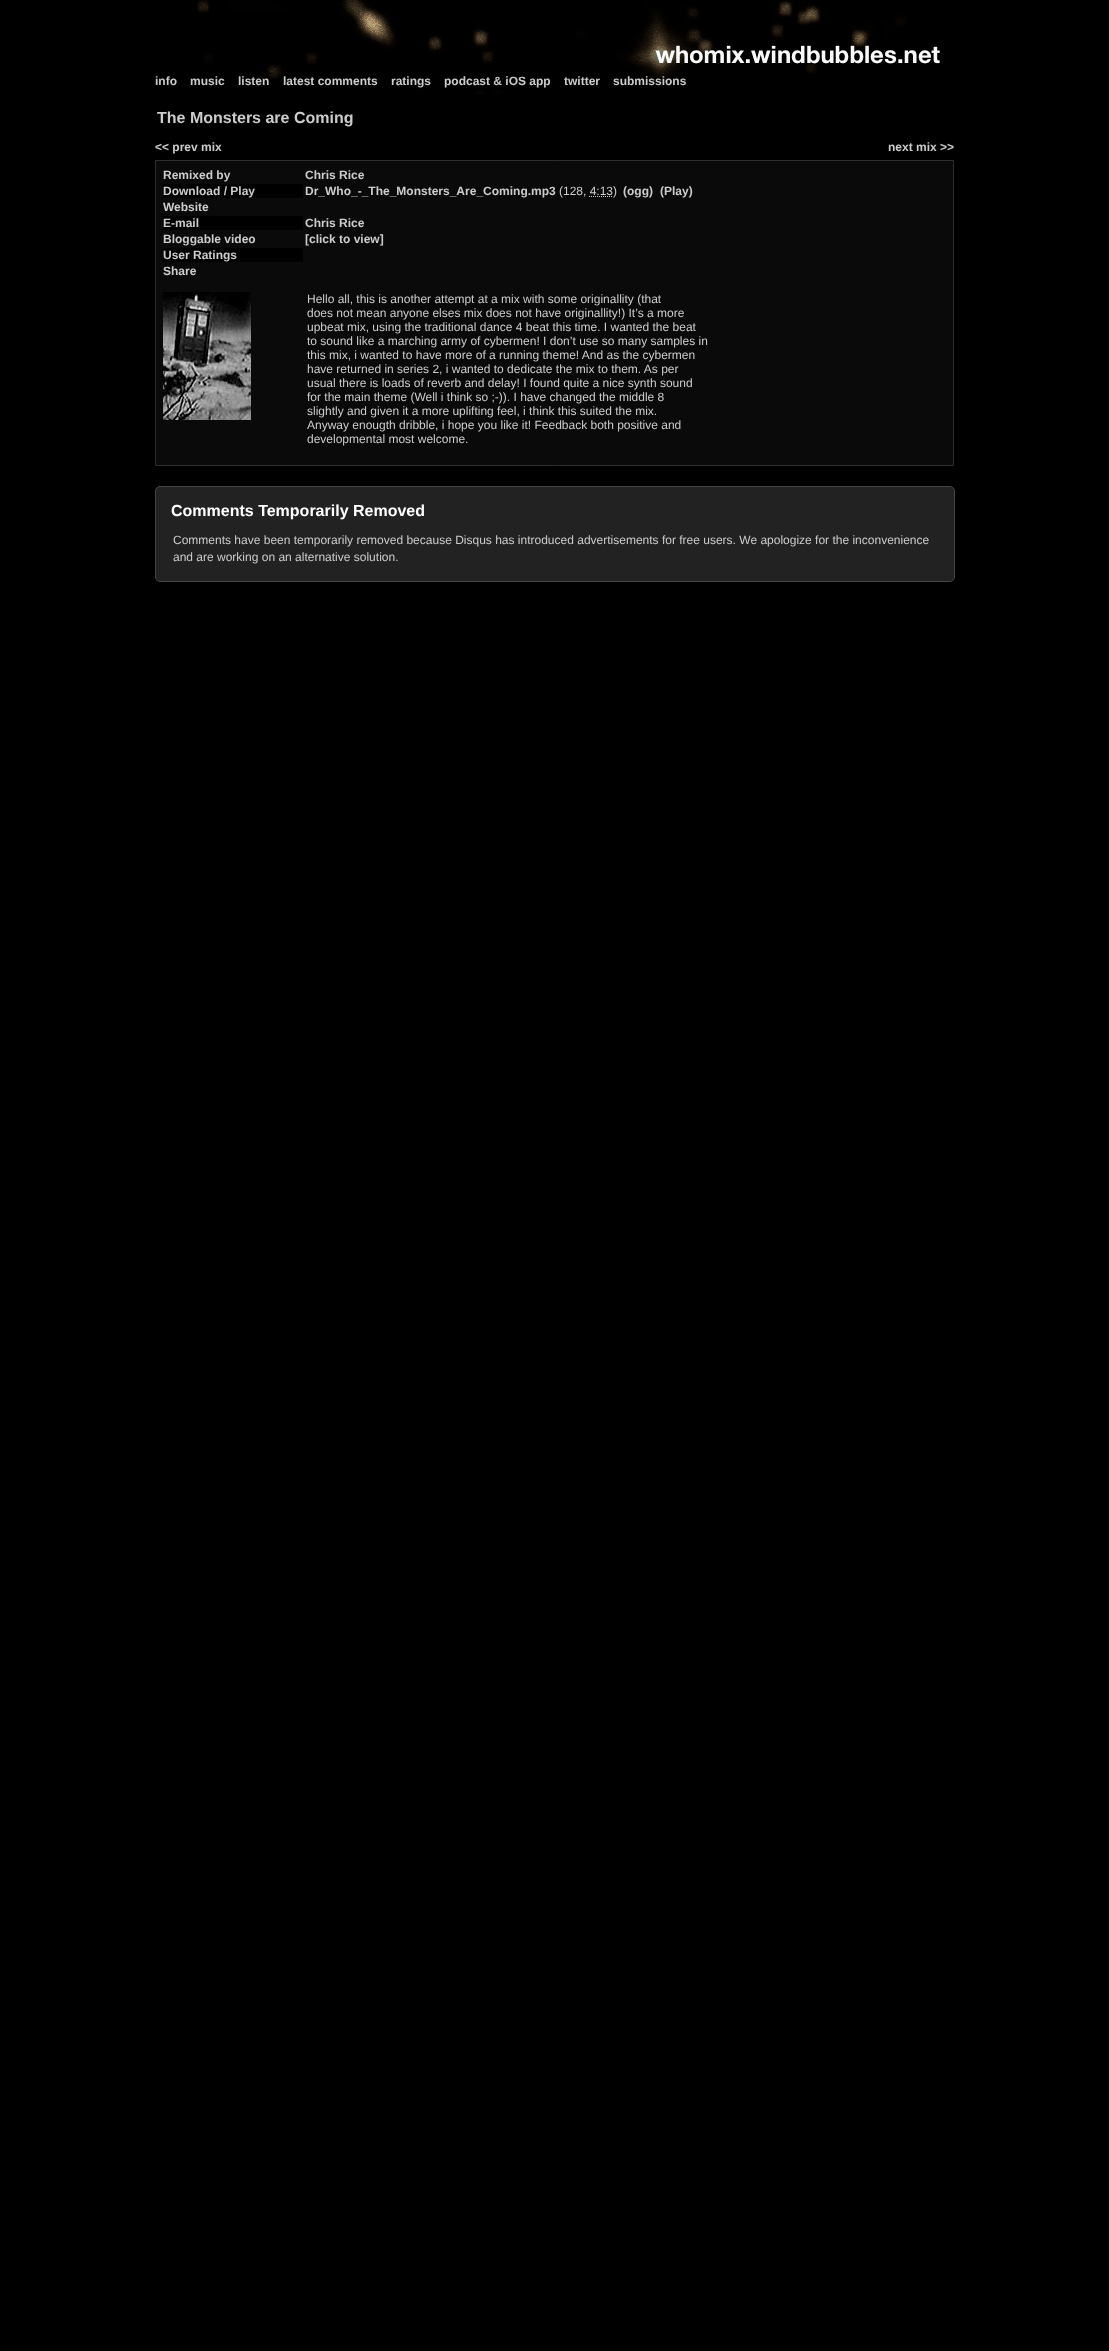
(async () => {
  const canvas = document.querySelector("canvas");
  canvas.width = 1109;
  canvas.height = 2351;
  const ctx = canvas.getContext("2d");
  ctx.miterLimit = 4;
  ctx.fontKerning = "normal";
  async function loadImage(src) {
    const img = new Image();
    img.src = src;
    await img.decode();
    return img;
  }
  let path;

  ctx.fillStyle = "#000000";
  ctx.fillRect(0, 0, 1109, 2351);
  ctx.drawImage(await loadImage("img/1.png"), 197, 0, 743, 94);
  ctx.fillStyle = "#0a0a0a";
  ctx.beginPath();
  ctx.rect(155.5, 160.5, 798, 305);
  ctx.fill();
  ctx.strokeStyle = "#2f2f2f";
  ctx.stroke();
  ctx.fillStyle = "#000000";
  ctx.fillRect(163, 184, 140, 14);
  path = new Path2D("M589 196.5H612.5");
  ctx.strokeStyle = "#cccccc";
  ctx.setLineDash([1, 1]);
  ctx.stroke(path);
  ctx.fillRect(163, 216, 140, 14);
  ctx.fillRect(163, 248, 140, 14);
  ctx.drawImage(await loadImage("img/2.png"), 163, 292, 88, 128);
  ctx.fillStyle = "#222222";
  ctx.beginPath();
  ctx.roundRect(155.5, 486.5, 799, 95, 4.5);
  ctx.fill();
  ctx.strokeStyle = "#444444";
  ctx.setLineDash([]);
  ctx.stroke();
  ctx.font = "bold 12px Liberation Sans";
  ctx.fillStyle = "#cccccc";
  for (const [text, x, y] of [
    ["info", 155, 85],
    ["music", 190, 85],
    ["listen", 238, 85],
    ["latest comments", 283, 85],
    ["ratings", 391, 85],
    ["podcast & iOS app", 444, 85],
    ["twitter", 564, 85],
    ["submissions", 613, 85],
  ]) {
    ctx.fillText(text, x, y);
  }
  ctx.font = "bold 16px Liberation Sans";
  ctx.fillText("The Monsters are Coming", 157, 123);
  ctx.font = "bold 12px Liberation Sans";
  for (const [text, x, y] of [
    ["<< prev mix", 155, 151],
    ["next mix >>", 888, 151],
    ["Remixed by", 163, 179],
    ["Chris Rice", 305, 179],
    ["Download / Play", 163, 195],
    ["Dr_Who_-_The_Monsters_Are_Coming.mp3", 305, 195],
  ]) {
    ctx.fillText(text, x, y);
  }
  ctx.font = "12px Liberation Sans";
  ctx.fillText("(128, 4:13)", 559, 195);
  ctx.font = "bold 12px Liberation Sans";
  for (const [text, x, y] of [
    ["(ogg)", 623, 195],
    ["(Play)", 660, 195],
    ["Website", 163, 211],
    ["E-mail", 163, 227],
    ["Chris Rice", 305, 227],
    ["Bloggable video", 163, 243],
    ["[click to view]", 305, 243],
    ["User Ratings", 163, 259],
    ["Share", 163, 275],
  ]) {
    ctx.fillText(text, x, y);
  }
  ctx.font = "12px Liberation Sans";
  for (const [text, x, y] of [
    ["Hello all, this is another attempt at a mix with some originallity (that", 307, 303],
    ["does not mean anyone elses mix does not have originallity!) It’s a more", 307, 317],
    ["upbeat mix, using the traditional dance 4 beat this time. I wanted the beat", 307, 331],
    ["to sound like a marching army of cybermen! I don’t use so many samples in", 307, 345],
    ["this mix, i wanted to have more of a running theme! And as the cybermen", 307, 359],
    ["have returned in series 2, i wanted to dedicate the mix to them. As per", 307, 373],
    ["usual there is loads of reverb and delay! I found quite a nice synth sound", 307, 387],
    ["for the main theme (Well i think so ;-)). I have changed the middle 8", 307, 401],
    ["slightly and given it a more uplifting feel, i think this suited the mix.", 307, 415],
    ["Anyway enougth dribble, i hope you like it! Feedback both positive and", 307, 429],
    ["developmental most welcome.", 307, 443],
  ]) {
    ctx.fillText(text, x, y);
  }
  ctx.font = "bold 16px Liberation Sans";
  ctx.fillStyle = "#ffffff";
  ctx.fillText("Comments Temporarily Removed", 171, 516);
  ctx.font = "12px Liberation Sans";
  ctx.fillStyle = "#cccccc";
  ctx.fillText("Comments have been temporarily removed because Disqus has introduced advertisements for free users. We apologize for the inconvenience", 173, 544);
  ctx.fillText("and are working on an alternative solution.", 173, 561);
})();
